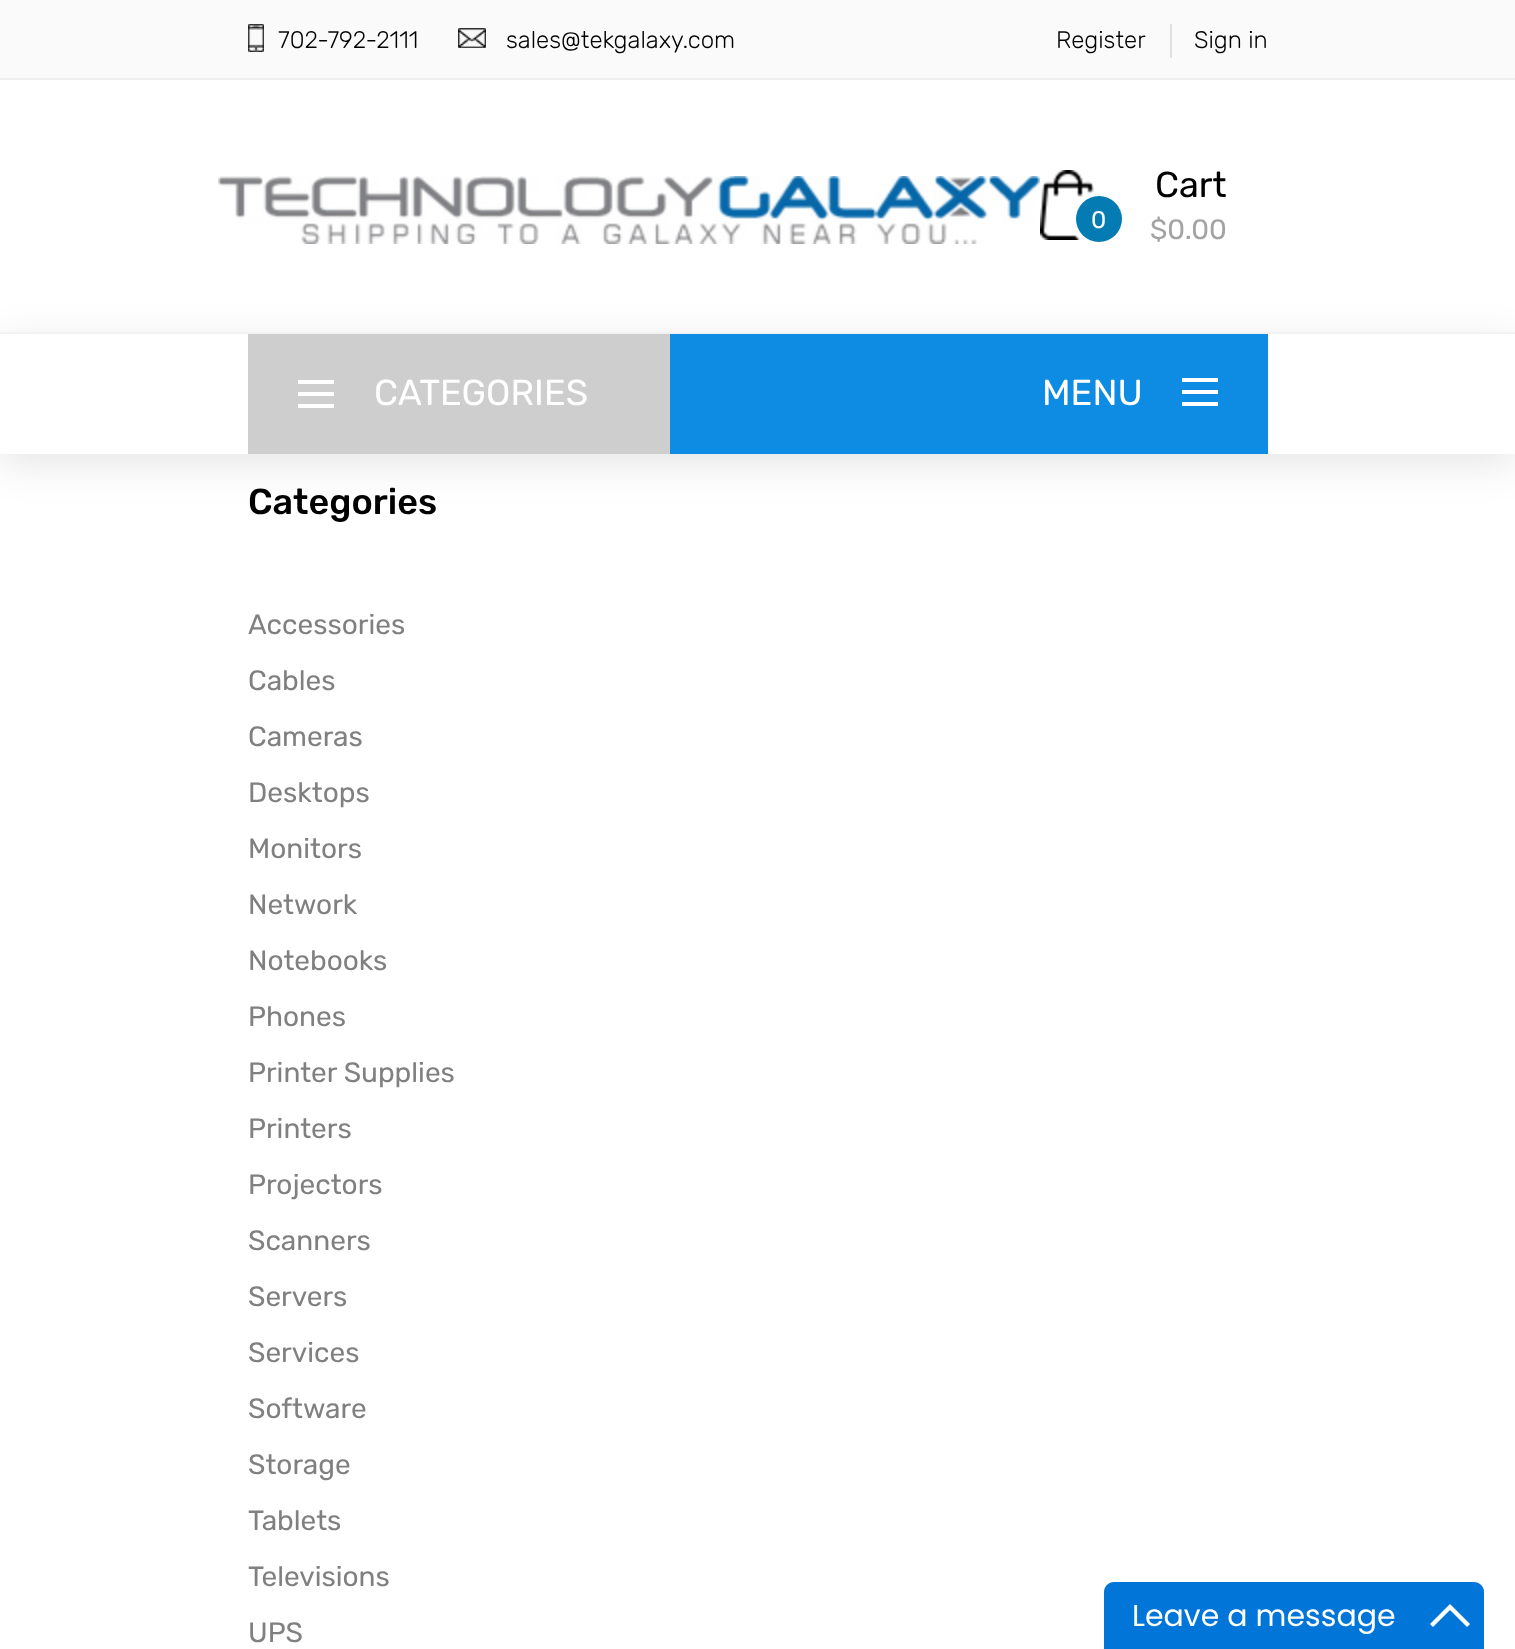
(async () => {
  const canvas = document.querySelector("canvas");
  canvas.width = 1515;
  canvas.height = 1649;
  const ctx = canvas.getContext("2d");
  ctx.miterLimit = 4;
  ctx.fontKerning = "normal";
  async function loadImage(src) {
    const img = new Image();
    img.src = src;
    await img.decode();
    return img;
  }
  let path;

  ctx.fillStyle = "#ffffff";
  ctx.fillRect(0, 0, 1515, 1649);
  ctx.fillStyle = "#fafafa";
  ctx.fillRect(0, 0, 1515, 78);
  ctx.fillStyle = "#eeeeee";
  ctx.fillRect(0, 78, 1515, 2);
  ctx.drawImage(await loadImage("img/1.png"), 248, 24, 16, 28);
  ctx.drawImage(await loadImage("img/2.png"), 458, 28, 28, 20);
  ctx.fillStyle = "#e1e1e1";
  ctx.fillRect(1170, 24, 2, 34);
  ctx.drawImage(await loadImage("img/3.png"), 218, 176, 822, 68);
  ctx.drawImage(await loadImage("img/4.png"), 1040, 170, 54, 70);
  ctx.fillStyle = "#047bb2";
  ctx.beginPath();
  ctx.arc(1099, 219, 23, 0, Math.PI * 2);
  ctx.fill();
  ctx.save();
  path = new Path2D("M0 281H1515V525H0ZM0 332H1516V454H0Z");
  ctx.clip(path, "evenodd");
  ctx.fillStyle = "rgba(0, 0, 0, 0.1)";
  ctx.filter = "blur(20px)";
  ctx.beginPath();
  ctx.rect(0, 342, 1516, 122);
  ctx.fill();
  ctx.filter = "none";
  ctx.restore();
  for (const [x, y, w, h, color] of [
    [0, 332, 1515, 2, "#f2f2f2"],
    [670, 334, 598, 120, "#0e8ce4"],
    [248, 334, 422, 120, "#cecece"],
    [298, 380, 36, 4, "#ffffff"],
    [298, 392, 36, 4, "#ffffff"],
    [298, 404, 36, 4, "#ffffff"],
    [1182, 378, 36, 4, "#ffffff"],
    [1182, 390, 36, 4, "#ffffff"],
    [1182, 402, 36, 4, "#ffffff"],
  ]) {
    ctx.fillStyle = color;
    ctx.fillRect(x, y, w, h);
  }
  ctx.fillStyle = "#0275d8";
  path = new Path2D("M1114 1582H1474C1479.5 1582 1484 1586.5 1484 1592V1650H1104V1592C1104 1586.5 1108.5 1582 1114 1582Z");
  ctx.fill(path);
  ctx.fillStyle = "#ffffff";
  path = new Path2D("M1450 1604L1470 1624L1467 1627L1450 1610L1433 1627L1430 1624Z");
  ctx.fill(path);
  ctx.font = "300 24px Rubik";
  ctx.fillStyle = "#000000";
  for (const [text, x, y] of [
    ["702-792-2111", 278, 48],
    ["sales@tekgalaxy.com", 506, 48],
    ["Register", 1056, 48],
    ["Sign in", 1194, 48],
  ]) {
    ctx.fillText(text, x, y);
  }
  ctx.font = "24px Rubik";
  ctx.fillStyle = "#ffffff";
  ctx.fillText("0", 1091, 228);
  ctx.font = "36px Rubik";
  ctx.fillStyle = "#000000";
  ctx.fillText("Cart", 1155, 197);
  ctx.font = "28px Rubik";
  ctx.fillStyle = "#a3a3a3";
  ctx.fillText("$0.00", 1150, 239);
  ctx.font = "36px Rubik";
  ctx.fillStyle = "#ffffff";
  ctx.fillText("CATEGORIES", 374, 405);
  ctx.fillText("MENU", 1042, 405);
  ctx.font = "500 36px Rubik";
  ctx.fillStyle = "#000000";
  ctx.fillText("Categories", 248, 514);
  ctx.font = "28px Rubik";
  ctx.fillStyle = "#808080";
  for (const [text, x, y] of [
    ["Accessories", 248, 634],
    ["Cables", 248, 690],
    ["Cameras", 248, 746],
    ["Desktops", 248, 802],
    ["Monitors", 248, 858],
    ["Network", 248, 914],
    ["Notebooks", 248, 970],
    ["Phones", 248, 1026],
    ["Printer Supplies", 248, 1082],
    ["Printers", 248, 1138],
    ["Projectors", 248, 1194],
    ["Scanners", 248, 1250],
    ["Servers", 248, 1306],
    ["Services", 248, 1362],
    ["Software", 248, 1418],
    ["Storage", 248, 1474],
    ["Tablets", 248, 1530],
    ["Televisions", 248, 1586],
    ["UPS", 248, 1642],
  ]) {
    ctx.fillText(text, x, y);
  }
  ctx.font = "30px Poppins";
  ctx.fillStyle = "#ffffff";
  ctx.fillText("Leave a message", 1132, 1626);
})();
